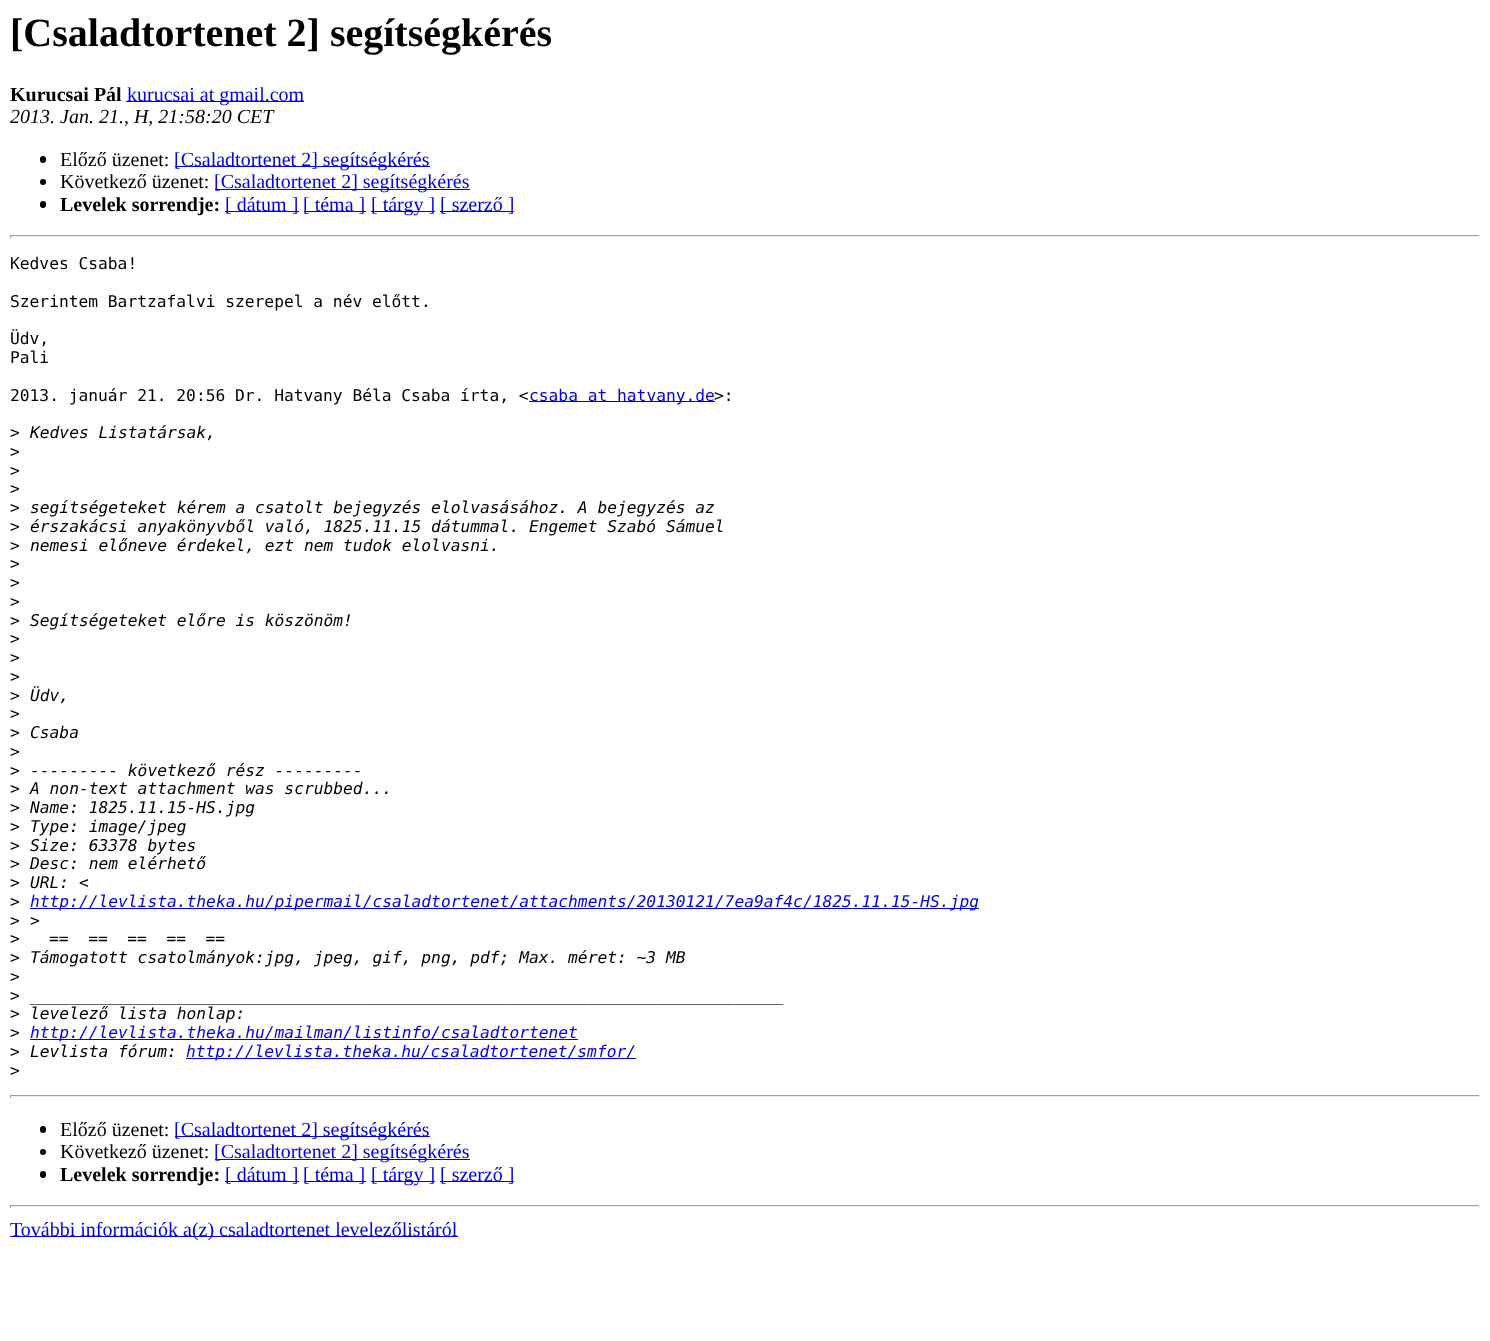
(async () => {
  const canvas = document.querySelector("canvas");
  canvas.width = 1490;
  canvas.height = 1341;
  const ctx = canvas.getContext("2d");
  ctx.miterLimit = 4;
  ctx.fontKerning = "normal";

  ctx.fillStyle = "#ffffff";
  ctx.fillRect(0, 0, 1490, 1341);
  ctx.fillStyle = "#0000ee";
  ctx.fillRect(126, 101, 178, 1);
  ctx.fillStyle = "#000000";
  ctx.beginPath();
  ctx.roundRect(40, 156, 6, 7, 3);
  ctx.fill();
  ctx.fillStyle = "#0000ee";
  ctx.fillRect(175, 166, 255, 1);
  ctx.fillStyle = "#000000";
  ctx.beginPath();
  ctx.arc(43, 182, 3, 0, Math.PI * 2);
  ctx.fill();
  ctx.fillStyle = "#0000ee";
  ctx.fillRect(215, 189, 255, 1);
  ctx.fillStyle = "#000000";
  ctx.beginPath();
  ctx.roundRect(40, 201, 6, 7, 3);
  ctx.fill();
  for (const [x, y, w, h, color] of [
    [225, 211, 74, 1, "#0000ee"],
    [304, 211, 62, 1, "#0000ee"],
    [371, 211, 64, 1, "#0000ee"],
    [440, 211, 74, 1, "#0000ee"],
    [10, 235, 1470, 1, "#9f9f9f"],
    [1479, 235, 1, 3, "#eeeeee"],
    [10, 236, 1470, 1, "#eeeeee"],
    [10, 235, 1, 3, "#9f9f9f"],
    [529, 401, 186, 1, "#0000ee"],
    [30, 908, 949, 1, "#0000ee"],
    [30, 1039, 548, 1, "#0000ee"],
    [186, 1058, 450, 1, "#0000ee"],
    [10, 1095, 1470, 1, "#9f9f9f"],
    [1479, 1095, 1, 3, "#eeeeee"],
    [10, 1096, 1470, 1, "#eeeeee"],
    [10, 1095, 1, 3, "#9f9f9f"],
  ]) {
    ctx.fillStyle = color;
    ctx.fillRect(x, y, w, h);
  }
  ctx.fillStyle = "#000000";
  ctx.beginPath();
  ctx.roundRect(40, 1126, 6, 7, 3);
  ctx.fill();
  ctx.fillStyle = "#0000ee";
  ctx.fillRect(175, 1136, 255, 1);
  ctx.fillStyle = "#000000";
  ctx.beginPath();
  ctx.arc(43, 1152, 3, 0, Math.PI * 2);
  ctx.fill();
  ctx.fillStyle = "#0000ee";
  ctx.fillRect(215, 1159, 255, 1);
  ctx.fillStyle = "#000000";
  ctx.beginPath();
  ctx.roundRect(40, 1171, 6, 7, 3);
  ctx.fill();
  for (const [x, y, w, h, color] of [
    [225, 1181, 74, 1, "#0000ee"],
    [304, 1181, 62, 1, "#0000ee"],
    [371, 1181, 64, 1, "#0000ee"],
    [440, 1181, 74, 1, "#0000ee"],
    [10, 1205, 1470, 1, "#9f9f9f"],
    [1479, 1205, 1, 3, "#eeeeee"],
    [10, 1206, 1470, 1, "#eeeeee"],
    [10, 1205, 1, 3, "#9f9f9f"],
    [10, 1236, 448, 1, "#0000ee"],
  ]) {
    ctx.fillStyle = color;
    ctx.fillRect(x, y, w, h);
  }
  ctx.font = "bold 40px Liberation Serif";
  ctx.fillStyle = "#000000";
  ctx.fillText("[Csaladtortenet 2] segítségkérés", 10, 46);
  ctx.font = "bold 20px Liberation Serif";
  ctx.fillText("Kurucsai Pál", 10, 101);
  ctx.font = "20px Liberation Serif";
  ctx.fillStyle = "#0000ee";
  ctx.fillText("kurucsai at gmail.com", 127, 101);
  ctx.font = "italic 20px Liberation Serif";
  ctx.fillStyle = "#000000";
  ctx.fillText("2013. Jan. 21., H, 21:58:20 CET", 10, 123);
  ctx.font = "20px Liberation Serif";
  ctx.fillText("Előző üzenet:", 60, 166);
  ctx.fillStyle = "#0000ee";
  ctx.fillText("[Csaladtortenet 2] segítségkérés", 174, 166);
  ctx.fillStyle = "#000000";
  ctx.fillText("Következő üzenet:", 60, 188);
  ctx.fillStyle = "#0000ee";
  ctx.fillText("[Csaladtortenet 2] segítségkérés", 214, 188);
  ctx.font = "bold 20px Liberation Serif";
  ctx.fillStyle = "#000000";
  ctx.fillText("Levelek sorrendje:", 60, 211);
  ctx.font = "20px Liberation Serif";
  ctx.fillStyle = "#0000ee";
  for (const [text, x, y] of [
    ["[ dátum ]", 225, 211],
    ["[ téma ]", 303, 211],
    ["[ tárgy ]", 371, 211],
    ["[ szerző ]", 440, 211],
  ]) {
    ctx.fillText(text, x, y);
  }
  ctx.font = "16.25px DejaVu Sans Mono";
  ctx.fillStyle = "#000000";
  for (const [text, x, y] of [
    ["Kedves Csaba!", 10, 269],
    ["Szerintem Bartzafalvi szerepel a név előtt.", 10, 307],
    ["Üdv,", 10, 344],
    ["Pali", 10, 363],
    ["2013. január 21. 20:56 Dr. Hatvany Béla Csaba írta, <", 10, 401],
  ]) {
    ctx.fillText(text, x, y);
  }
  ctx.fillStyle = "#0000ee";
  ctx.fillText("csaba at hatvany.de", 529, 401);
  ctx.fillStyle = "#000000";
  ctx.fillText(">:", 714, 401);
  ctx.fillText(">", 10, 438);
  ctx.font = "italic 16.25px DejaVu Sans Mono";
  ctx.fillText("Kedves Listatársak,", 30, 438);
  ctx.font = "16.25px DejaVu Sans Mono";
  for (const [text, x, y] of [
    [">", 10, 457],
    [">", 10, 476],
    [">", 10, 494],
    [">", 10, 513],
  ]) {
    ctx.fillText(text, x, y);
  }
  ctx.font = "italic 16.25px DejaVu Sans Mono";
  ctx.fillText("segítségeteket kérem a csatolt bejegyzés elolvasásához. A bejegyzés az", 30, 513);
  ctx.font = "16.25px DejaVu Sans Mono";
  ctx.fillText(">", 10, 532);
  ctx.font = "italic 16.25px DejaVu Sans Mono";
  ctx.fillText("érszakácsi anyakönyvből való, 1825.11.15 dátummal. Engemet Szabó Sámuel", 30, 532);
  ctx.font = "16.25px DejaVu Sans Mono";
  ctx.fillText(">", 10, 551);
  ctx.font = "italic 16.25px DejaVu Sans Mono";
  ctx.fillText("nemesi előneve érdekel, ezt nem tudok elolvasni.", 30, 551);
  ctx.font = "16.25px DejaVu Sans Mono";
  for (const [text, x, y] of [
    [">", 10, 569],
    [">", 10, 588],
    [">", 10, 607],
    [">", 10, 626],
  ]) {
    ctx.fillText(text, x, y);
  }
  ctx.font = "italic 16.25px DejaVu Sans Mono";
  ctx.fillText("Segítségeteket előre is köszönöm!", 30, 626);
  ctx.font = "16.25px DejaVu Sans Mono";
  for (const [text, x, y] of [
    [">", 10, 644],
    [">", 10, 663],
    [">", 10, 682],
    [">", 10, 701],
  ]) {
    ctx.fillText(text, x, y);
  }
  ctx.font = "italic 16.25px DejaVu Sans Mono";
  ctx.fillText("Üdv,", 30, 701);
  ctx.font = "16.25px DejaVu Sans Mono";
  ctx.fillText(">", 10, 719);
  ctx.fillText(">", 10, 738);
  ctx.font = "italic 16.25px DejaVu Sans Mono";
  ctx.fillText("Csaba", 30, 738);
  ctx.font = "16.25px DejaVu Sans Mono";
  ctx.fillText(">", 10, 757);
  ctx.fillText(">", 10, 776);
  ctx.font = "italic 16.25px DejaVu Sans Mono";
  ctx.fillText("--------- következő rész ---------", 30, 776);
  ctx.font = "16.25px DejaVu Sans Mono";
  ctx.fillText(">", 10, 794);
  ctx.font = "italic 16.25px DejaVu Sans Mono";
  ctx.fillText("A non-text attachment was scrubbed...", 30, 794);
  ctx.font = "16.25px DejaVu Sans Mono";
  ctx.fillText(">", 10, 813);
  ctx.font = "italic 16.25px DejaVu Sans Mono";
  ctx.fillText("Name: 1825.11.15-HS.jpg", 30, 813);
  ctx.font = "16.25px DejaVu Sans Mono";
  ctx.fillText(">", 10, 832);
  ctx.font = "italic 16.25px DejaVu Sans Mono";
  ctx.fillText("Type: image/jpeg", 30, 832);
  ctx.font = "16.25px DejaVu Sans Mono";
  ctx.fillText(">", 10, 851);
  ctx.font = "italic 16.25px DejaVu Sans Mono";
  ctx.fillText("Size: 63378 bytes", 30, 851);
  ctx.font = "16.25px DejaVu Sans Mono";
  ctx.fillText(">", 10, 869);
  ctx.font = "italic 16.25px DejaVu Sans Mono";
  ctx.fillText("Desc: nem elérhető", 30, 869);
  ctx.font = "16.25px DejaVu Sans Mono";
  ctx.fillText(">", 10, 888);
  ctx.font = "italic 16.25px DejaVu Sans Mono";
  ctx.fillText("URL: <", 30, 888);
  ctx.font = "16.25px DejaVu Sans Mono";
  ctx.fillText(">", 10, 907);
  ctx.font = "italic 16.25px DejaVu Sans Mono";
  ctx.fillStyle = "#0000ee";
  ctx.fillText("http://levlista.theka.hu/pipermail/csaladtortenet/attachments/20130121/7ea9af4c/1825.11.15-HS.jpg", 30, 907);
  ctx.font = "16.25px DejaVu Sans Mono";
  ctx.fillStyle = "#000000";
  ctx.fillText(">", 10, 926);
  ctx.font = "italic 16.25px DejaVu Sans Mono";
  ctx.fillText(">", 30, 926);
  ctx.font = "16.25px DejaVu Sans Mono";
  ctx.fillText(">", 10, 944);
  ctx.font = "italic 16.25px DejaVu Sans Mono";
  ctx.fillText("==  ==  ==  ==  ==", 49, 944);
  ctx.font = "16.25px DejaVu Sans Mono";
  ctx.fillText(">", 10, 963);
  ctx.font = "italic 16.25px DejaVu Sans Mono";
  ctx.fillText("Támogatott csatolmányok:jpg, jpeg, gif, png, pdf; Max. méret: ~3 MB", 30, 963);
  ctx.font = "16.25px DejaVu Sans Mono";
  ctx.fillText(">", 10, 982);
  ctx.fillText(">", 10, 1001);
  ctx.font = "italic 16.25px DejaVu Sans Mono";
  ctx.fillText("_____________________________________________________________________________", 30, 1001);
  ctx.font = "16.25px DejaVu Sans Mono";
  ctx.fillText(">", 10, 1019);
  ctx.font = "italic 16.25px DejaVu Sans Mono";
  ctx.fillText("levelező lista honlap:", 30, 1019);
  ctx.font = "16.25px DejaVu Sans Mono";
  ctx.fillText(">", 10, 1038);
  ctx.font = "italic 16.25px DejaVu Sans Mono";
  ctx.fillStyle = "#0000ee";
  ctx.fillText("http://levlista.theka.hu/mailman/listinfo/csaladtortenet", 30, 1038);
  ctx.font = "16.25px DejaVu Sans Mono";
  ctx.fillStyle = "#000000";
  ctx.fillText(">", 10, 1057);
  ctx.font = "italic 16.25px DejaVu Sans Mono";
  ctx.fillText("Levlista fórum:", 30, 1057);
  ctx.fillStyle = "#0000ee";
  ctx.fillText("http://levlista.theka.hu/csaladtortenet/smfor/", 186, 1057);
  ctx.font = "16.25px DejaVu Sans Mono";
  ctx.fillStyle = "#000000";
  ctx.fillText(">", 10, 1076);
  ctx.font = "20px Liberation Serif";
  ctx.fillText("Előző üzenet:", 60, 1136);
  ctx.fillStyle = "#0000ee";
  ctx.fillText("[Csaladtortenet 2] segítségkérés", 174, 1136);
  ctx.fillStyle = "#000000";
  ctx.fillText("Következő üzenet:", 60, 1158);
  ctx.fillStyle = "#0000ee";
  ctx.fillText("[Csaladtortenet 2] segítségkérés", 214, 1158);
  ctx.font = "bold 20px Liberation Serif";
  ctx.fillStyle = "#000000";
  ctx.fillText("Levelek sorrendje:", 60, 1181);
  ctx.font = "20px Liberation Serif";
  ctx.fillStyle = "#0000ee";
  for (const [text, x, y] of [
    ["[ dátum ]", 225, 1181],
    ["[ téma ]", 303, 1181],
    ["[ tárgy ]", 371, 1181],
    ["[ szerző ]", 440, 1181],
    ["További információk a(z) csaladtortenet levelezőlistáról", 10, 1236],
  ]) {
    ctx.fillText(text, x, y);
  }
})();
